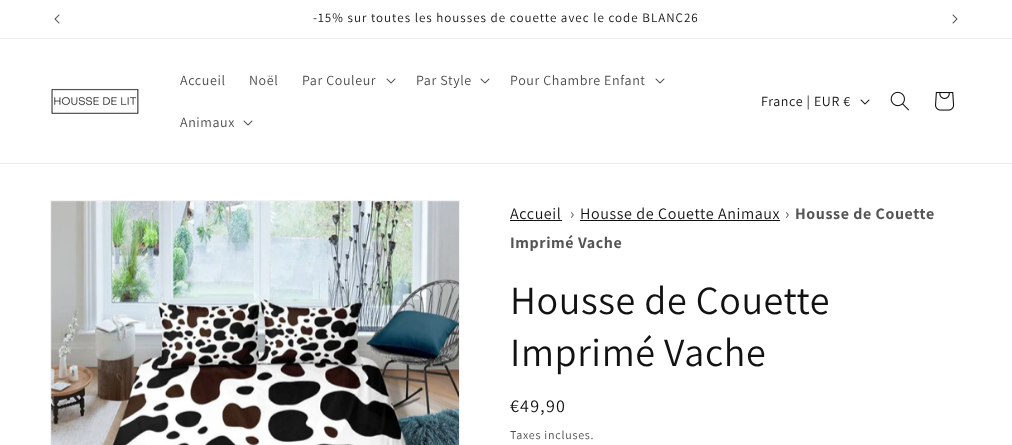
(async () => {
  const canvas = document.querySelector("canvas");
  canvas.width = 1012;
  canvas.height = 445;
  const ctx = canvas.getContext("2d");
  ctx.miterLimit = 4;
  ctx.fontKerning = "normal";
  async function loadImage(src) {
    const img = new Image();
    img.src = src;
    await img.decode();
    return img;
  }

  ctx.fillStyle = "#ffffff";
  ctx.fillRect(0, 0, 1012, 445);
  ctx.fillStyle = "#ececec";
  ctx.fillRect(0, 38, 1012, 1);
  ctx.drawImage(await loadImage("img/1.png"), 54, 14, 6, 10);
  ctx.drawImage(await loadImage("img/2.png"), 952, 14, 6, 10);
  ctx.fillRect(0, 163, 1012, 1);
  ctx.drawImage(await loadImage("img/3.png"), 50, 88, 89, 26);
  ctx.drawImage(await loadImage("img/4.png"), 386, 78, 10, 6);
  ctx.drawImage(await loadImage("img/4.png"), 480, 78, 10, 6);
  ctx.drawImage(await loadImage("img/4.png"), 655, 78, 10, 6);
  ctx.drawImage(await loadImage("img/4.png"), 243, 120, 10, 6);
  ctx.drawImage(await loadImage("img/5.png"), 860, 99, 10, 6);
  ctx.drawImage(await loadImage("img/6.png"), 890, 91, 19, 20);
  ctx.drawImage(await loadImage("img/7.png"), 935, 92, 20, 19);
  ctx.strokeStyle = "#f3f3f3";
  ctx.strokeRect(50.5, 200.5, 409, 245);
  ctx.drawImage(await loadImage("img/8.png"), 51, 201, 408, 244);
  ctx.fillStyle = "#121212";
  ctx.fillRect(510, 220, 52, 1);
  ctx.fillRect(580, 220, 200, 1);
  ctx.letterSpacing = "1px";
  ctx.font = "13px Assistant";
  ctx.fillText("-15% sur toutes les housses de couette avec le code BLANC26", 313, 22);
  ctx.letterSpacing = "0.6px";
  ctx.font = "14px Assistant";
  ctx.fillStyle = "#4d4d4d";
  for (const [text, x, y] of [
    ["Accueil", 180, 85],
    ["Noël", 249, 85],
    ["Par Couleur", 302, 85],
    ["Par Style", 416, 85],
    ["Pour Chambre Enfant", 510, 85],
    ["Animaux", 180, 127],
  ]) {
    ctx.fillText(text, x, y);
  }
  ctx.fillStyle = "#121212";
  ctx.fillText("France | EUR €", 761, 106);
  ctx.font = "16px Assistant";
  ctx.fillText("Accueil", 510, 219);
  ctx.fillStyle = "#555555";
  ctx.fillText("›", 570, 219);
  ctx.fillStyle = "#121212";
  ctx.fillText("Housse de Couette Animaux", 580, 219);
  ctx.fillStyle = "#555555";
  ctx.fillText("›", 785, 219);
  ctx.font = "bold 16px Assistant";
  ctx.fillText("Housse de Couette", 795, 219);
  ctx.fillText("Imprimé Vache", 510, 248);
  ctx.font = "40px Assistant";
  ctx.fillStyle = "#121212";
  ctx.fillText("Housse de Couette", 510, 314);
  ctx.fillText("Imprimé Vache", 510, 366);
  ctx.letterSpacing = "1.25px";
  ctx.font = "18px Assistant";
  ctx.fillText("€49,90", 510, 412);
  ctx.letterSpacing = "0.75px";
  ctx.font = "12px Assistant";
  ctx.fillStyle = "#4d4d4d";
  ctx.fillText("Taxes incluses.", 510, 439);
})();
